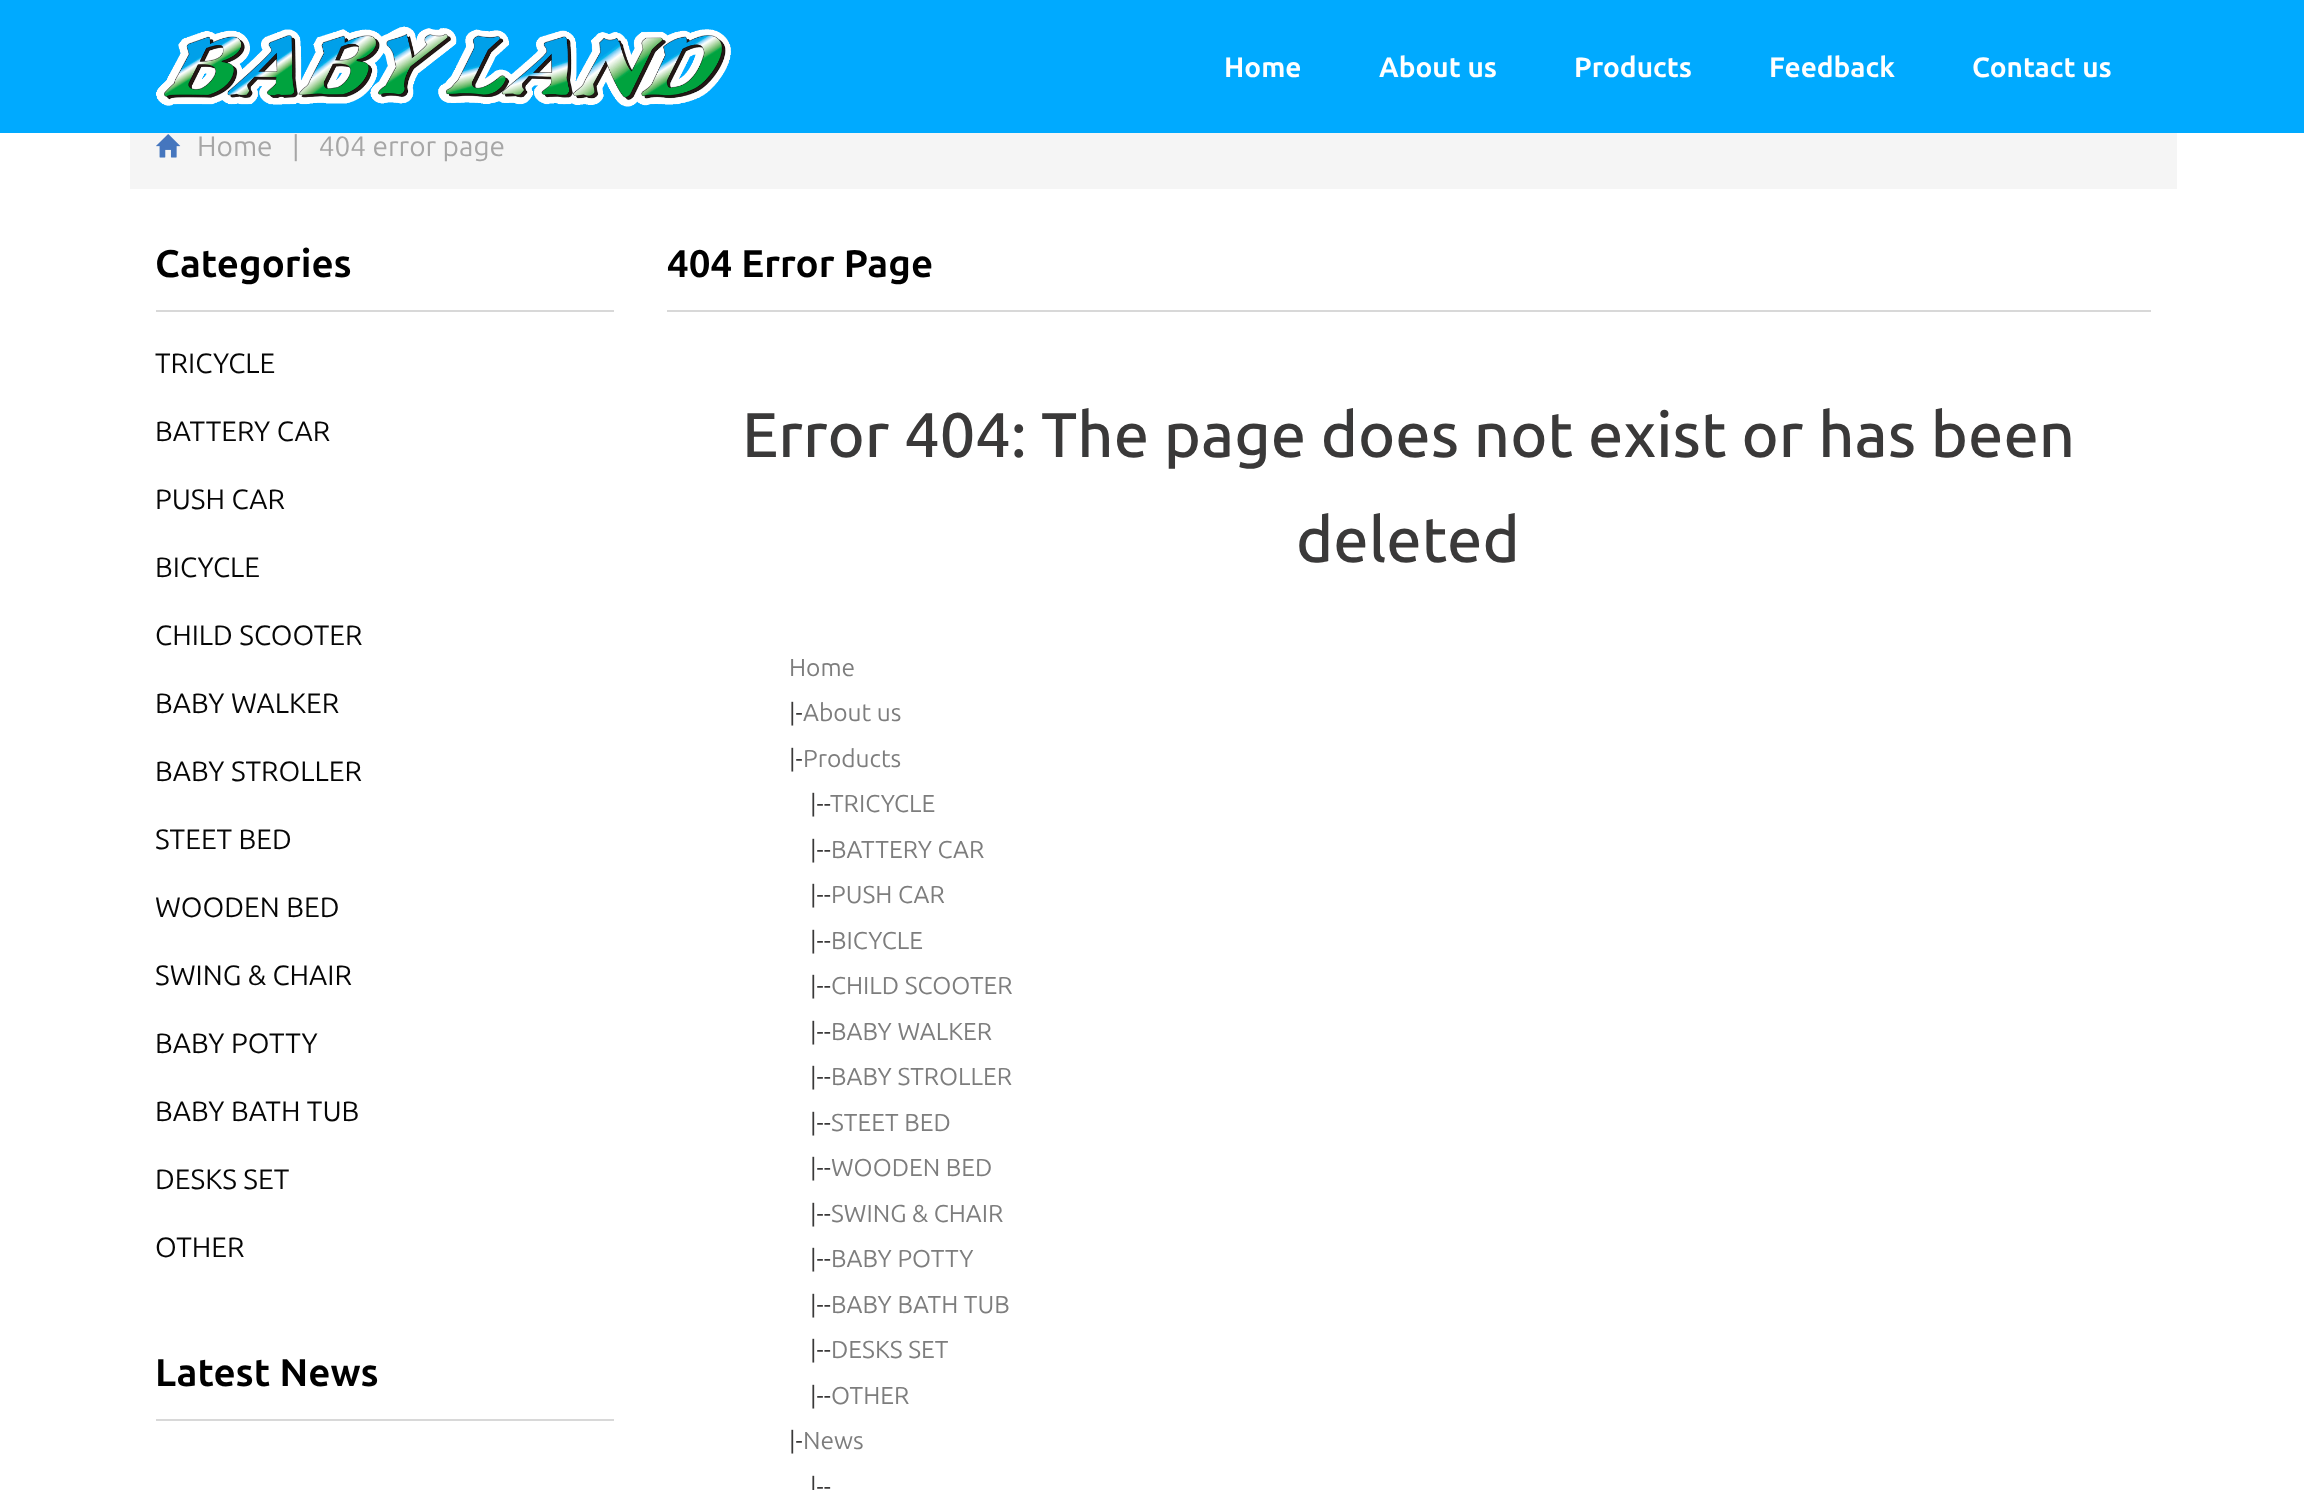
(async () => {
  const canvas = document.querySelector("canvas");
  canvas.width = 2304;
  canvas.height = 1490;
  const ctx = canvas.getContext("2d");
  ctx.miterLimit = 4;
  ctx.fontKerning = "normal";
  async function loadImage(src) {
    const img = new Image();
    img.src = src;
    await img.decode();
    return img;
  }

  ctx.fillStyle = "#ffffff";
  ctx.fillRect(0, 0, 2304, 1490);
  ctx.fillStyle = "#00aaff";
  ctx.fillRect(0, 0, 2304, 133);
  ctx.drawImage(await loadImage("img/1.png"), 156, 26, 575, 81);
  ctx.fillStyle = "#f5f5f5";
  ctx.fillRect(130, 133, 2047, 56);
  ctx.drawImage(await loadImage("img/2.png"), 156, 134, 25, 24);
  for (const [x, y, w, h, color] of [
    [156, 310, 458, 2, "#d8d8d8"],
    [156, 1419, 458, 2, "#d8d8d8"],
    [667, 310, 1484, 2, "#d8d8d8"],
  ]) {
    ctx.fillStyle = color;
    ctx.fillRect(x, y, w, h);
  }
  ctx.font = "bold 28px Ubuntu";
  ctx.fillStyle = "#ffffff";
  for (const [text, x, y] of [
    ["Home", 1224, 77],
    ["About us", 1379, 77],
    ["Products", 1574, 77],
    ["Feedback", 1769, 77],
    ["Contact us", 1972, 77],
  ]) {
    ctx.fillText(text, x, y);
  }
  ctx.font = "28px Ubuntu";
  ctx.fillStyle = "#a6a6a6";
  ctx.fillText("Home", 197, 156);
  ctx.fillText("|   404 error page", 292, 156);
  ctx.font = "bold 38.5px Ubuntu";
  ctx.fillStyle = "#000000";
  ctx.fillText("Categories", 155, 277);
  ctx.font = "28px Ubuntu";
  ctx.fillStyle = "#060606";
  for (const [text, x, y] of [
    ["TRICYCLE", 155, 373],
    ["BATTERY CAR", 155, 441],
    ["PUSH CAR", 155, 509],
    ["BICYCLE", 155, 577],
    ["CHILD SCOOTER", 155, 645],
    ["BABY WALKER", 155, 713],
    ["BABY STROLLER", 155, 781],
    ["STEET BED", 155, 849],
    ["WOODEN BED", 155, 917],
    ["SWING & CHAIR", 155, 985],
    ["BABY POTTY", 155, 1053],
    ["BABY BATH TUB", 155, 1121],
    ["DESKS SET", 155, 1189],
    ["OTHER", 155, 1257],
  ]) {
    ctx.fillText(text, x, y);
  }
  ctx.font = "bold 38.5px Ubuntu";
  ctx.fillStyle = "#000000";
  ctx.fillText("Latest News", 155, 1386);
  ctx.fillText("404 Error Page", 667, 277);
  ctx.font = "500 63px Ubuntu";
  ctx.fillStyle = "#3a3939";
  ctx.fillText("Error 404: The page does not exist or has been", 742, 457);
  ctx.fillText("deleted", 1296, 562);
  ctx.font = "24.5px Ubuntu";
  ctx.fillStyle = "#7d7d7d";
  ctx.fillText("Home", 789, 676);
  ctx.fillStyle = "#3a3939";
  ctx.fillText("|-", 789, 721);
  ctx.fillStyle = "#7d7d7d";
  ctx.fillText("About us", 803, 721);
  ctx.fillStyle = "#3a3939";
  ctx.fillText("|-", 789, 767);
  ctx.fillStyle = "#7d7d7d";
  ctx.fillText("Products", 803, 767);
  ctx.fillStyle = "#3a3939";
  ctx.fillText("|--", 810, 812);
  ctx.fillStyle = "#7d7d7d";
  ctx.fillText("TRICYCLE", 830, 812);
  ctx.fillStyle = "#3a3939";
  ctx.fillText("|--", 810, 858);
  ctx.fillStyle = "#7d7d7d";
  ctx.fillText("BATTERY CAR", 831, 858);
  ctx.fillStyle = "#3a3939";
  ctx.fillText("|--", 810, 903);
  ctx.fillStyle = "#7d7d7d";
  ctx.fillText("PUSH CAR", 831, 903);
  ctx.fillStyle = "#3a3939";
  ctx.fillText("|--", 810, 949);
  ctx.fillStyle = "#7d7d7d";
  ctx.fillText("BICYCLE", 831, 949);
  ctx.fillStyle = "#3a3939";
  ctx.fillText("|--", 810, 994);
  ctx.fillStyle = "#7d7d7d";
  ctx.fillText("CHILD SCOOTER", 831, 994);
  ctx.fillStyle = "#3a3939";
  ctx.fillText("|--", 810, 1040);
  ctx.fillStyle = "#7d7d7d";
  ctx.fillText("BABY WALKER", 831, 1040);
  ctx.fillStyle = "#3a3939";
  ctx.fillText("|--", 810, 1085);
  ctx.fillStyle = "#7d7d7d";
  ctx.fillText("BABY STROLLER", 831, 1085);
  ctx.fillStyle = "#3a3939";
  ctx.fillText("|--", 810, 1131);
  ctx.fillStyle = "#7d7d7d";
  ctx.fillText("STEET BED", 831, 1131);
  ctx.fillStyle = "#3a3939";
  ctx.fillText("|--", 810, 1176);
  ctx.fillStyle = "#7d7d7d";
  ctx.fillText("WOODEN BED", 831, 1176);
  ctx.fillStyle = "#3a3939";
  ctx.fillText("|--", 810, 1222);
  ctx.fillStyle = "#7d7d7d";
  ctx.fillText("SWING & CHAIR", 831, 1222);
  ctx.fillStyle = "#3a3939";
  ctx.fillText("|--", 810, 1267);
  ctx.fillStyle = "#7d7d7d";
  ctx.fillText("BABY POTTY", 831, 1267);
  ctx.fillStyle = "#3a3939";
  ctx.fillText("|--", 810, 1313);
  ctx.fillStyle = "#7d7d7d";
  ctx.fillText("BABY BATH TUB", 831, 1313);
  ctx.fillStyle = "#3a3939";
  ctx.fillText("|--", 810, 1358);
  ctx.fillStyle = "#7d7d7d";
  ctx.fillText("DESKS SET", 831, 1358);
  ctx.fillStyle = "#3a3939";
  ctx.fillText("|--", 810, 1404);
  ctx.fillStyle = "#7d7d7d";
  ctx.fillText("OTHER", 831, 1404);
  ctx.fillStyle = "#3a3939";
  ctx.fillText("|-", 789, 1449);
  ctx.fillStyle = "#7d7d7d";
  ctx.fillText("News", 803, 1449);
  ctx.fillStyle = "#3a3939";
  ctx.fillText("|--", 810, 1495);
})();
